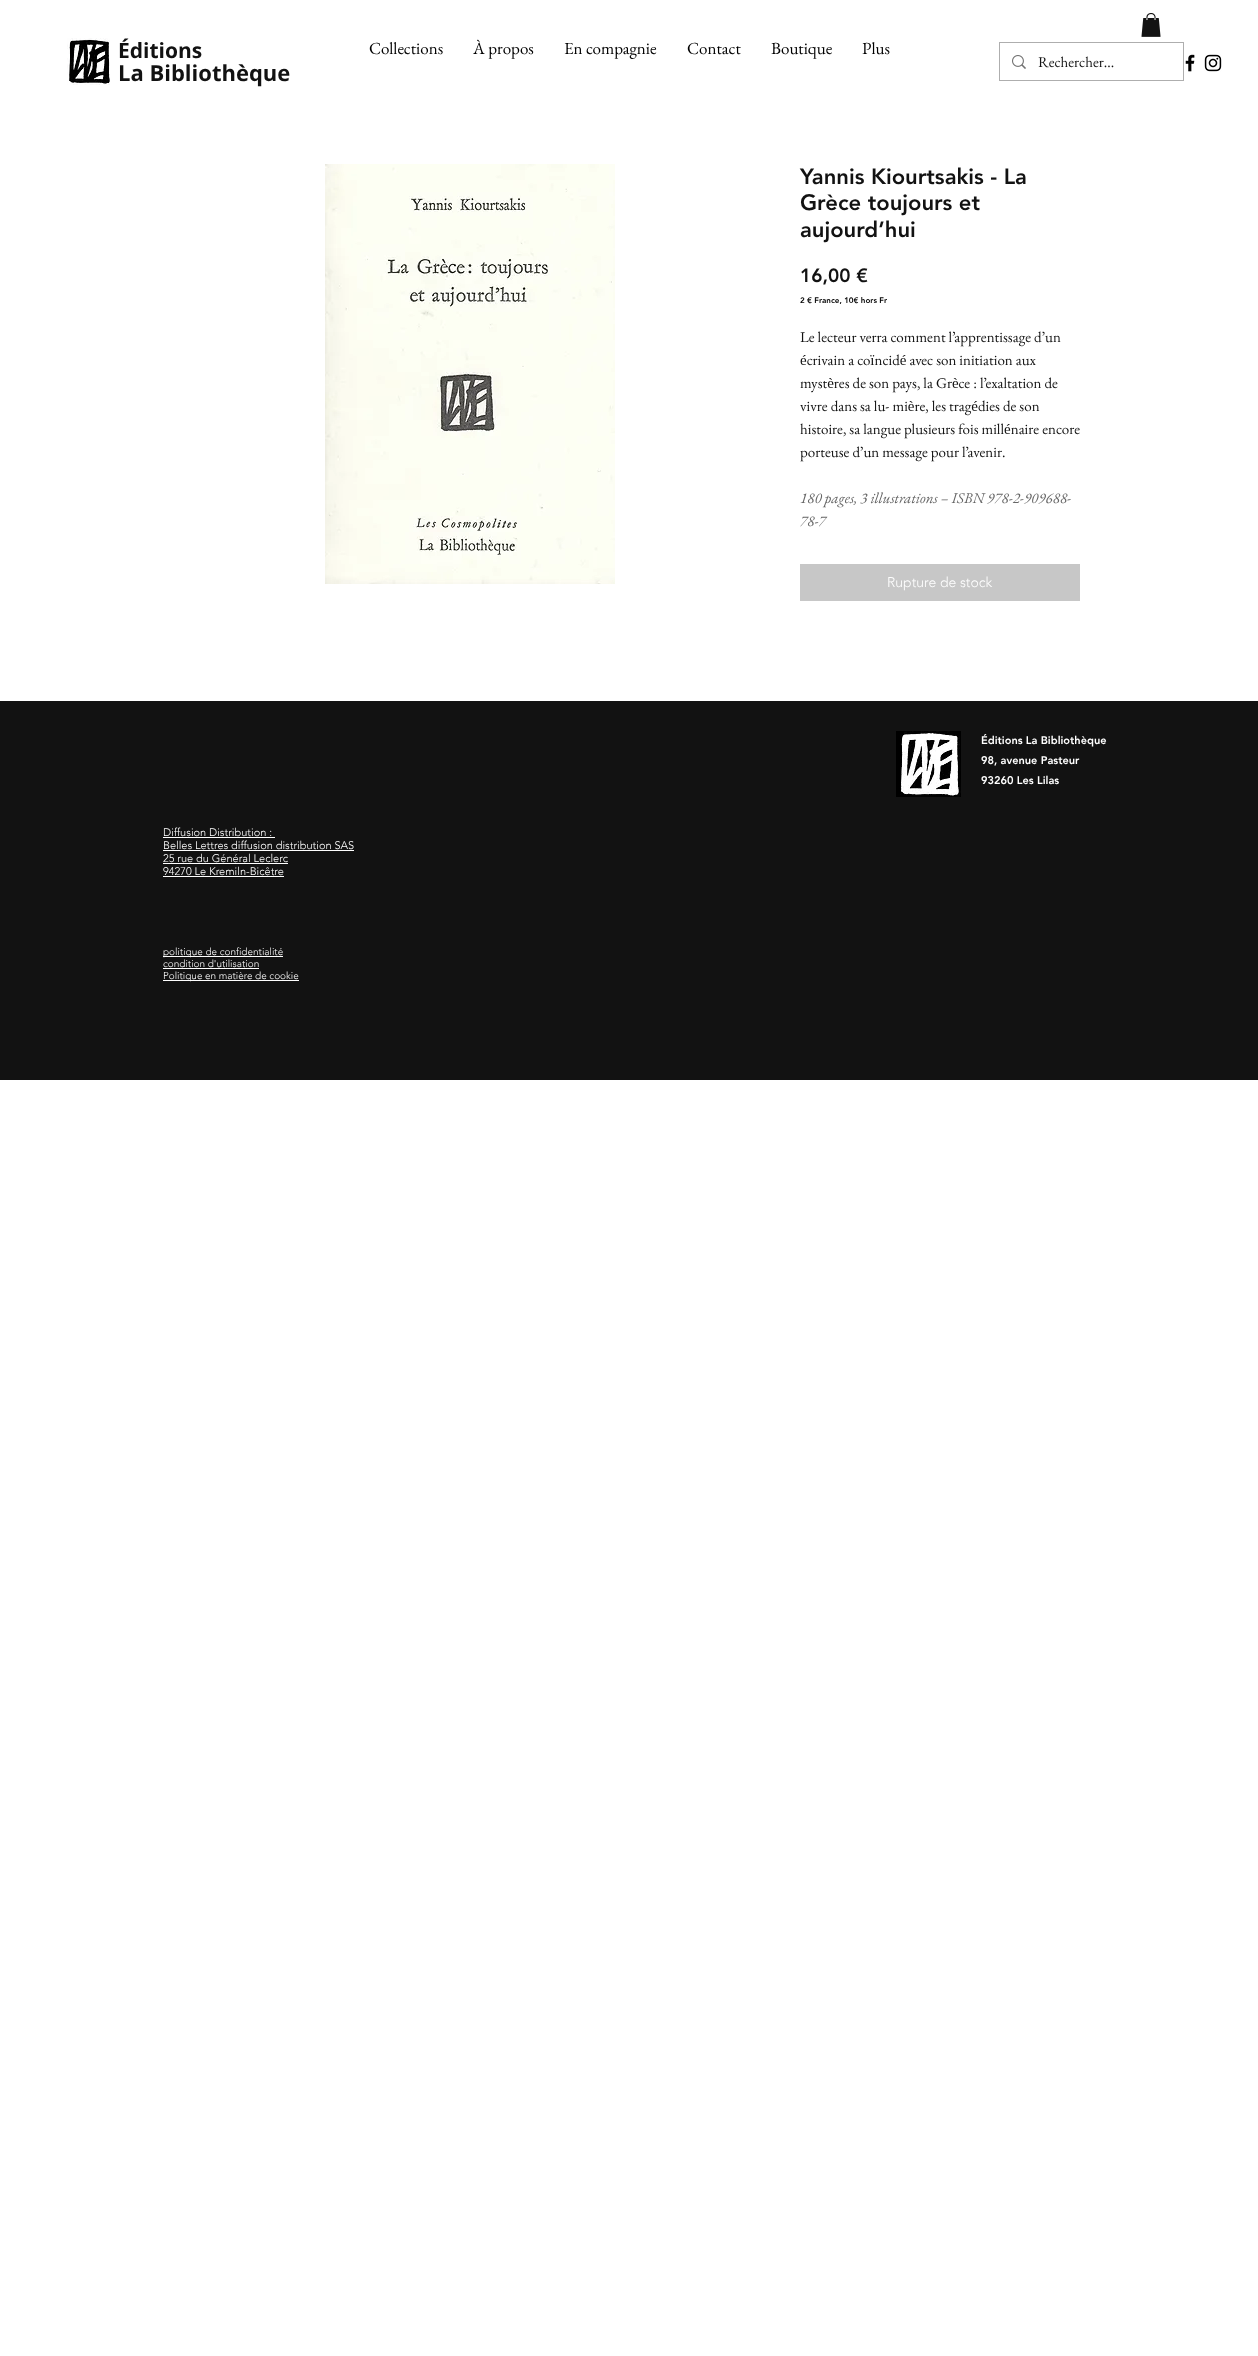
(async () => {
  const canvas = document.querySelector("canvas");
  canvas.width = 1258;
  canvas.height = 2356;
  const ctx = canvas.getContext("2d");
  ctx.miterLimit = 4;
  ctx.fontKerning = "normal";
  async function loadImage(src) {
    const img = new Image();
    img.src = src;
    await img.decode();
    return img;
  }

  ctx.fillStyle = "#ffffff";
  ctx.fillRect(0, 0, 1258, 2356);
  ctx.drawImage(await loadImage("img/1.png"), 1141, 13, 20, 24);
  ctx.drawImage(await loadImage("img/2.png"), 67, 38, 43, 47);
  ctx.strokeStyle = "#aeaeae";
  ctx.strokeRect(999.5, 42.5, 184, 38);
  ctx.drawImage(await loadImage("img/3.png"), 1012, 55, 14, 14);
  ctx.drawImage(await loadImage("img/4.png"), 1185, 54, 10, 18);
  ctx.drawImage(await loadImage("img/5.png"), 1204, 54, 18, 18);
  ctx.drawImage(await loadImage("img/6.png"), 325, 164, 290, 420);
  ctx.fillStyle = "#c7c7c7";
  ctx.fillRect(800, 564, 280, 37);
  ctx.fillStyle = "#121212";
  ctx.fillRect(0, 701, 1258, 379);
  ctx.drawImage(await loadImage("img/7.png"), 896, 731, 65, 66);
  for (const [x, y, w, h, color] of [
    [163, 837, 112, 1, "#ffffff"],
    [163, 850, 191, 1, "#ffffff"],
    [163, 863, 125, 1, "#ffffff"],
    [163, 876, 121, 1, "#ffffff"],
    [163, 956, 120, 1, "#ffffff"],
    [163, 968, 96, 1, "#ffffff"],
    [163, 980, 136, 1, "#ffffff"],
  ]) {
    ctx.fillStyle = color;
    ctx.fillRect(x, y, w, h);
  }
  ctx.font = "bold 21px Open Sans";
  ctx.fillStyle = "#121212";
  ctx.fillText("Éditions", 118, 58);
  ctx.font = "15px EB Garamond";
  ctx.fillText("Rechercher...", 1038, 67);
  ctx.font = "bold 22px Open Sans";
  ctx.fillText("La Bibliothèque", 118, 81);
  ctx.font = "17px EB Garamond";
  ctx.fillStyle = "#000000";
  for (const [text, x, y] of [
    ["Collections", 369, 54],
    ["À propos", 473, 54],
    ["En compagnie", 564, 54],
    ["Contact", 687, 54],
    ["Boutique", 771, 54],
    ["Plus", 862, 54],
  ]) {
    ctx.fillText(text, x, y);
  }
  ctx.font = "900 22px 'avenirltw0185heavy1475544'";
  ctx.fillStyle = "#121212";
  for (const [text, x, y] of [
    ["Yannis Kiourtsakis - La", 800, 184],
    ["Grèce toujours et", 800, 210],
    ["aujourd’hui", 800, 237],
  ]) {
    ctx.fillText(text, x, y);
  }
  ctx.font = "900 19px 'avenirltw0185heavy1475544'";
  ctx.fillText("16,00 €", 800, 282);
  ctx.font = "900 8px 'avenirltw0185heavy1475544'";
  ctx.fillStyle = "#000000";
  ctx.fillText("2 € France, 10€ hors Fr", 800, 303);
  ctx.font = "15px EB Garamond";
  ctx.fillStyle = "#121212";
  for (const [text, x, y] of [
    ["Le lecteur verra comment l’apprentissage d’un", 800, 342],
    ["écrivain a coïncidé avec son initiation aux", 800, 365],
    ["mystères de son pays, la Grèce : l’exaltation de", 800, 388],
    ["vivre dans sa lu- mière, les tragédies de son", 800, 411],
    ["histoire, sa langue plusieurs fois millénaire encore", 800, 434],
    ["porteuse d’un message pour l’avenir.", 800, 457],
  ]) {
    ctx.fillText(text, x, y);
  }
  ctx.font = "italic 15px EB Garamond";
  ctx.fillStyle = "#666666";
  ctx.fillText("180 pages, 3 illustrations – ISBN 978-2-909688-", 800, 503);
  ctx.fillText("78-7", 800, 526);
  ctx.font = "300 14px 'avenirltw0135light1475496'";
  ctx.fillStyle = "#ffffff";
  ctx.fillText("Rupture de stock", 887, 587);
  ctx.font = "900 11px 'avenirltw0185heavy1475544'";
  for (const [text, x, y] of [
    ["Éditions La Bibliothèque", 981, 744],
    ["98, avenue Pasteur", 981, 764],
    ["93260 Les Lilas", 981, 784],
  ]) {
    ctx.fillText(text, x, y);
  }
  ctx.font = "300 11px 'avenirltw0135light1475496'";
  for (const [text, x, y] of [
    ["Diffusion Distribution :", 163, 836],
    ["Belles Lettres diffusion distribution SAS", 163, 849],
    ["25 rue du Général Leclerc", 163, 862],
    ["94270 Le Kremiln-Bicêtre", 163, 875],
  ]) {
    ctx.fillText(text, x, y);
  }
  ctx.font = "300 10px 'avenirltw0135light1475496'";
  for (const [text, x, y] of [
    ["politique de confidentialité", 163, 955],
    ["condition d'utilisation", 163, 967],
    ["Politique en matière de cookie", 163, 979],
  ]) {
    ctx.fillText(text, x, y);
  }
})();
